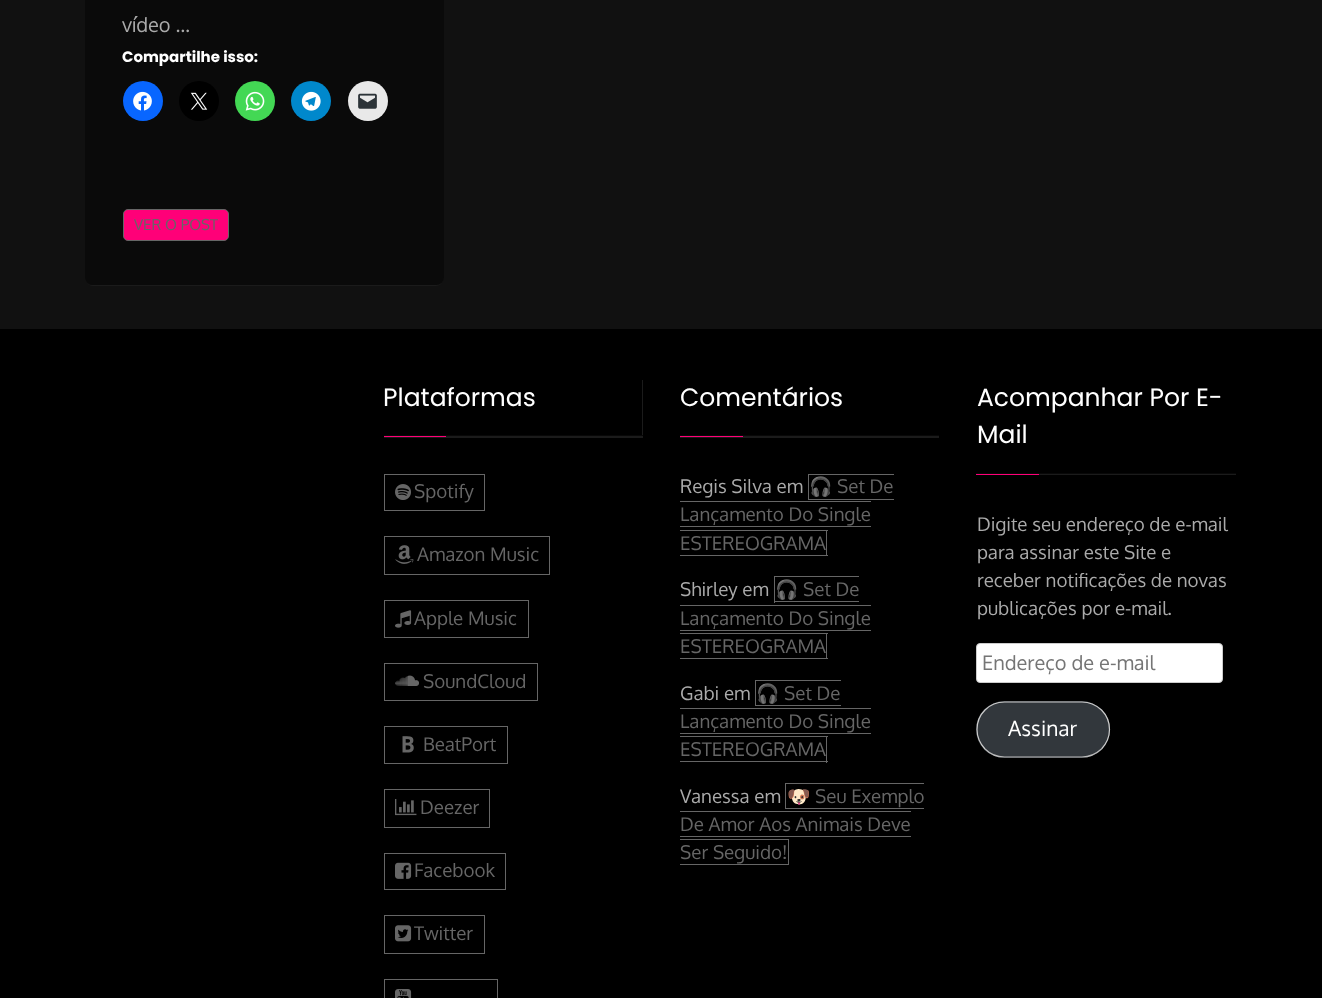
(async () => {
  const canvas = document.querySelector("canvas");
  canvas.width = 1322;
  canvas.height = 998;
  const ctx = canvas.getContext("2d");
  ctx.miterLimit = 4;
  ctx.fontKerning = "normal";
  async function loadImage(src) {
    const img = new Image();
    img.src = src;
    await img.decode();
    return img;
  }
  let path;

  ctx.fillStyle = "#111111";
  ctx.fillRect(0, 0, 1322, 998);
  ctx.fillStyle = "#1b1b1b";
  path = new Path2D("M85 278C85 282 89 286 93 286H436C440 286 444 282 444 278V-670V278C444 282 440 285 436 285H92C88 285 85 282 85 278Z");
  ctx.fill(path);
  ctx.fillStyle = "rgba(0, 0, 0, 0.4)";
  ctx.beginPath();
  ctx.roundRect(85, -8, 359, 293, 8);
  ctx.fill();
  ctx.fillStyle = "#0866ff";
  ctx.beginPath();
  ctx.arc(143, 101, 20, 0, Math.PI * 2);
  ctx.fill();
  ctx.drawImage(await loadImage("img/1.png"), 133, 91, 19, 20);
  ctx.fillStyle = "#000000";
  ctx.beginPath();
  ctx.arc(199, 101, 20, 0, Math.PI * 2);
  ctx.fill();
  ctx.drawImage(await loadImage("img/2.png"), 190, 92, 18, 18);
  ctx.fillStyle = "#43d854";
  ctx.beginPath();
  ctx.arc(255, 101, 20, 0, Math.PI * 2);
  ctx.fill();
  ctx.drawImage(await loadImage("img/3.png"), 245, 91, 20, 20);
  ctx.fillStyle = "#0088cc";
  ctx.beginPath();
  ctx.arc(311, 101, 20, 0, Math.PI * 2);
  ctx.fill();
  ctx.drawImage(await loadImage("img/4.png"), 301, 91, 20, 20);
  ctx.fillStyle = "#e9e9e9";
  ctx.beginPath();
  ctx.arc(368, 101, 20, 0, Math.PI * 2);
  ctx.fill();
  ctx.drawImage(await loadImage("img/5.png"), 358, 93, 19, 16);
  ctx.fillStyle = "#ff0078";
  ctx.beginPath();
  ctx.roundRect(123.5, 209.5, 105, 31, 4.5);
  ctx.fill();
  ctx.strokeStyle = "#666666";
  ctx.stroke();
  ctx.fillStyle = "#000000";
  ctx.fillRect(0, 329, 1322, 669);
  ctx.fillStyle = "#1b1b1b";
  path = new Path2D("M384 436V438H643V380H642V436Z");
  ctx.fill(path);
  ctx.fillStyle = "#080808";
  ctx.fillRect(384, 435, 259, 1);
  ctx.fillStyle = "#ff0078";
  ctx.fillRect(384, 436, 62, 1);
  ctx.strokeRect(384.5, 474.5, 100, 36);
  ctx.drawImage(await loadImage("img/6.png"), 395, 484, 16, 16);
  ctx.strokeRect(384.5, 536.5, 165, 38);
  ctx.drawImage(await loadImage("img/7.png"), 395, 545, 19, 19);
  ctx.strokeRect(384.5, 600.5, 144, 37);
  ctx.drawImage(await loadImage("img/8.png"), 395, 610, 17, 18);
  ctx.strokeRect(384.5, 663.5, 153, 37);
  ctx.drawImage(await loadImage("img/9.png"), 395, 675, 24, 11);
  ctx.strokeRect(384.5, 726.5, 123, 37);
  ctx.drawImage(await loadImage("img/10.png"), 402, 736, 12, 17);
  ctx.strokeRect(384.5, 789.5, 105, 38);
  ctx.drawImage(await loadImage("img/11.png"), 395, 799, 22, 17);
  ctx.strokeRect(384.5, 853.5, 121, 36);
  ctx.drawImage(await loadImage("img/12.png"), 395, 862, 17, 17);
  ctx.strokeRect(384.5, 915.5, 100, 38);
  ctx.drawImage(await loadImage("img/13.png"), 395, 925, 17, 17);
  ctx.strokeRect(384.5, 979.5, 113, 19);
  ctx.drawImage(await loadImage("img/14.png"), 395, 989, 17, 9);
  ctx.fillStyle = "#1b1b1b";
  path = new Path2D("M680 436V438H939V380V436Z");
  ctx.fill(path);
  for (const [x, y, w, h, color] of [
    [680, 435, 259, 1, "#080808"],
    [680, 436, 63, 1, "#ff0078"],
    [808, 474, 86, 1, "#666666"],
    [808, 499, 86, 1, "#666666"],
    [808, 474, 1, 26, "#666666"],
    [680, 501, 191, 1, "#666666"],
    [680, 526, 191, 1, "#666666"],
    [680, 530, 148, 1, "#666666"],
    [826, 530, 1, 26, "#666666"],
    [680, 555, 148, 1, "#666666"],
    [774, 576, 85, 1, "#666666"],
    [774, 601, 85, 1, "#666666"],
    [774, 576, 1, 27, "#666666"],
    [680, 605, 191, 1, "#666666"],
    [680, 630, 191, 1, "#666666"],
    [680, 633, 148, 1, "#666666"],
    [826, 633, 1, 26, "#666666"],
    [680, 658, 148, 1, "#666666"],
    [755, 680, 86, 1, "#666666"],
    [755, 705, 86, 1, "#666666"],
    [755, 680, 1, 26, "#666666"],
    [680, 708, 191, 1, "#666666"],
    [680, 733, 191, 1, "#666666"],
    [680, 736, 148, 1, "#666666"],
    [826, 736, 1, 27, "#666666"],
    [680, 761, 148, 1, "#666666"],
    [785, 783, 139, 1, "#666666"],
    [785, 808, 139, 1, "#666666"],
    [785, 783, 1, 26, "#666666"],
    [680, 811, 231, 1, "#666666"],
    [680, 836, 231, 1, "#666666"],
    [680, 839, 109, 1, "#666666"],
    [788, 839, 1, 26, "#666666"],
    [680, 864, 109, 1, "#666666"],
  ]) {
    ctx.fillStyle = color;
    ctx.fillRect(x, y, w, h);
  }
  ctx.fillStyle = "#1b1b1b";
  path = new Path2D("M976 380V475H1236V474H976Z");
  ctx.fill(path);
  ctx.fillStyle = "#080808";
  ctx.fillRect(976, 473, 260, 1);
  ctx.fillStyle = "#ff0078";
  ctx.fillRect(976, 474, 63, 1);
  ctx.fillStyle = "#ffffff";
  ctx.beginPath();
  ctx.roundRect(976.5, 643.5, 246, 39, 3.5);
  ctx.fill();
  ctx.strokeStyle = "#cccccc";
  ctx.stroke();
  ctx.fillStyle = "#32373c";
  ctx.beginPath();
  ctx.roundRect(976, 701, 134, 57, 28.5);
  ctx.fill();
  path = new Path2D("M1101.5 749C1096 754 1089 757 1082 757H1004.5C997 757 990 754 985 749");
  ctx.strokeStyle = "#bbbbbb";
  ctx.lineWidth = 1.2;
  ctx.stroke(path);
  path = new Path2D("M985 749C980 743.5 977 736.5 977 729.5C977 722 980 715 985 710C990 705 997 702 1004.5 702H1082C1089 702 1096 705 1101.5 710C1106.5 715 1109.5 722 1109.5 729.5C1109.5 736.5 1106.5 743.5 1101.5 749");
  ctx.strokeStyle = "#cccccc";
  ctx.stroke(path);
  ctx.font = "20px Oxygen";
  ctx.fillStyle = "#aaaaaa";
  ctx.fillText("vídeo …", 122, 32);
  ctx.font = "bold 15px Poppins";
  ctx.fillStyle = "#ffffff";
  ctx.fillText("Compartilhe isso:", 122, 62);
  ctx.font = "15px Oxygen";
  ctx.fillStyle = "#666666";
  ctx.fillText("VER O POST", 134, 230);
  ctx.font = "25px Poppins";
  ctx.fillStyle = "#ffffff";
  ctx.fillText("Plataformas", 383, 406);
  ctx.font = "18.75px Oxygen";
  ctx.fillStyle = "#666666";
  for (const [text, x, y] of [
    ["Spotify", 414, 498],
    ["Amazon Music", 417, 561],
    ["Apple Music", 414, 625],
    ["SoundCloud", 423, 688],
    ["BeatPort", 423, 751],
    ["Deezer", 420, 814],
    ["Facebook", 414, 877],
    ["Twitter", 414, 940],
  ]) {
    ctx.fillText(text, x, y);
  }
  ctx.font = "25px Poppins";
  ctx.fillStyle = "#ffffff";
  ctx.fillText("Comentários", 680, 406);
  ctx.font = "18.75px Oxygen";
  ctx.fillStyle = "#aaaaaa";
  ctx.fillText("Regis Silva em", 680, 493);
  ctx.font = "18.75px Noto Color Emoji";
  ctx.fillStyle = "#666666";
  ctx.fillText("🎧", 809, 493);
  ctx.font = "18.75px Oxygen";
  for (const [text, x, y] of [
    ["Set De", 837, 493],
    ["Lançamento Do Single", 680, 521],
    ["ESTEREOGRAMA", 680, 550],
  ]) {
    ctx.fillText(text, x, y);
  }
  ctx.fillStyle = "#aaaaaa";
  ctx.fillText("Shirley em", 680, 596);
  ctx.font = "18.75px Noto Color Emoji";
  ctx.fillStyle = "#666666";
  ctx.fillText("🎧", 775, 596);
  ctx.font = "18.75px Oxygen";
  for (const [text, x, y] of [
    ["Set De", 803, 596],
    ["Lançamento Do Single", 680, 625],
    ["ESTEREOGRAMA", 680, 653],
  ]) {
    ctx.fillText(text, x, y);
  }
  ctx.fillStyle = "#aaaaaa";
  ctx.fillText("Gabi em", 680, 700);
  ctx.font = "18.75px Noto Color Emoji";
  ctx.fillStyle = "#666666";
  ctx.fillText("🎧", 756, 700);
  ctx.font = "18.75px Oxygen";
  for (const [text, x, y] of [
    ["Set De", 784, 700],
    ["Lançamento Do Single", 680, 728],
    ["ESTEREOGRAMA", 680, 756],
  ]) {
    ctx.fillText(text, x, y);
  }
  ctx.fillStyle = "#aaaaaa";
  ctx.fillText("Vanessa em", 680, 803);
  ctx.font = "18.75px Noto Color Emoji";
  ctx.fillStyle = "#666666";
  ctx.fillText("🐶", 787, 803);
  ctx.font = "18.75px Oxygen";
  for (const [text, x, y] of [
    ["Seu Exemplo", 815, 803],
    ["De Amor Aos Animais Deve", 680, 831],
    ["Ser Seguido!", 680, 859],
  ]) {
    ctx.fillText(text, x, y);
  }
  ctx.font = "25px Poppins";
  ctx.fillStyle = "#ffffff";
  ctx.fillText("Acompanhar Por E-", 977, 406);
  ctx.fillText("Mail", 977, 443);
  ctx.font = "18.75px Oxygen";
  ctx.fillStyle = "#aaaaaa";
  for (const [text, x, y] of [
    ["Digite seu endereço de e-mail", 977, 531],
    ["para assinar este Site e", 977, 559],
    ["receber notificações de novas", 977, 587],
    ["publicações por e-mail.", 977, 615],
  ]) {
    ctx.fillText(text, x, y);
  }
  ctx.font = "20px Oxygen";
  ctx.fillStyle = "#757575";
  ctx.fillText("Endereço de e-mail", 982, 670);
  ctx.font = "21px Oxygen";
  ctx.fillStyle = "#ffffff";
  ctx.fillText("Assinar", 1008, 736);
})();
